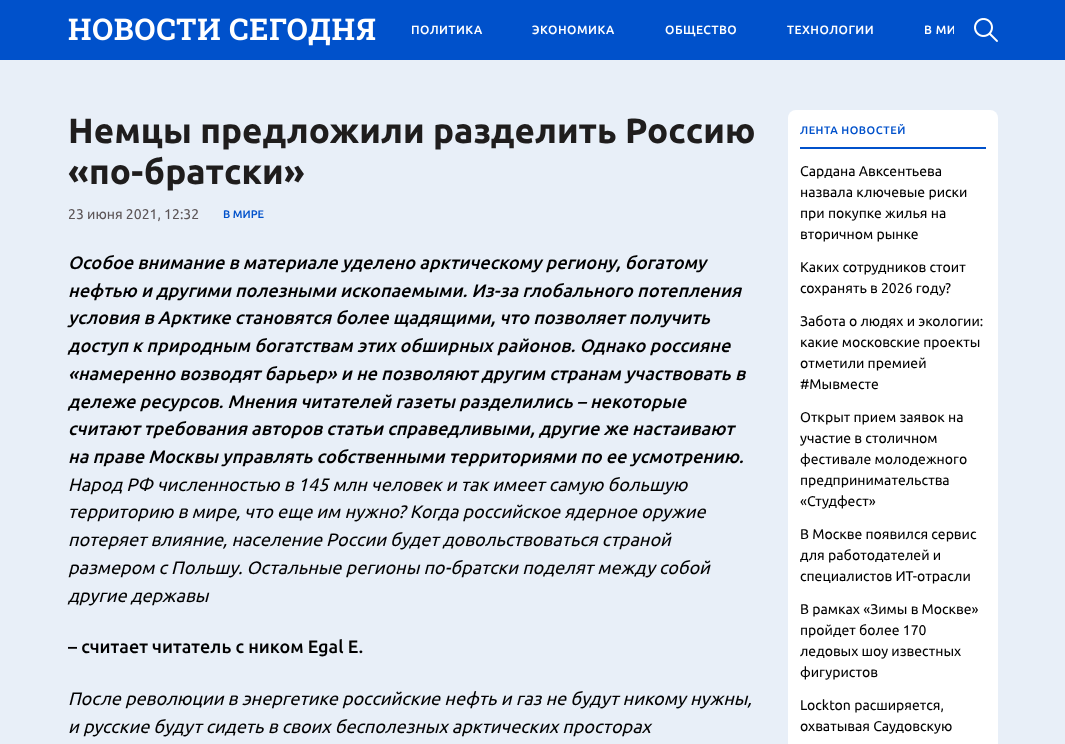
(async () => {
  const canvas = document.querySelector("canvas");
  canvas.width = 1065;
  canvas.height = 744;
  const ctx = canvas.getContext("2d");
  ctx.miterLimit = 4;
  ctx.fontKerning = "normal";
  async function loadImage(src) {
    const img = new Image();
    img.src = src;
    await img.decode();
    return img;
  }

  ctx.fillStyle = "#e8eff8";
  ctx.fillRect(0, 0, 1065, 744);
  ctx.fillStyle = "#0051cb";
  ctx.fillRect(0, 0, 1065, 60);
  ctx.drawImage(await loadImage("img/1.png"), 68, 18, 308, 28);
  ctx.drawImage(await loadImage("img/2.png"), 974, 18, 24, 24);
  ctx.fillStyle = "#ffffff";
  ctx.beginPath();
  ctx.roundRect(788, 110, 210, 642, 8);
  ctx.fill();
  ctx.fillStyle = "#0051cb";
  ctx.fillRect(800, 147, 186, 2);
  ctx.letterSpacing = "0.5px";
  ctx.font = "500 12px Ubuntu";
  ctx.fillStyle = "#ffffff";
  for (const [text, x, y] of [
    ["ПОЛИТИКА", 411, 34],
    ["ЭКОНОМИКА", 532, 34],
    ["ОБЩЕСТВО", 665, 34],
    ["ТЕХНОЛОГИИ", 787, 34],
  ]) {
    ctx.fillText(text, x, y);
  }
  ctx.save();
  ctx.beginPath();
  ctx.rect(386, 0, 568, 60);
  ctx.clip();
  ctx.fillText("В МИ", 924, 34);
  ctx.restore();
  ctx.letterSpacing = "0px";
  ctx.font = "bold 35px Ubuntu";
  ctx.fillStyle = "#1f1d1d";
  ctx.fillText("Немцы предложили разделить Россию", 68, 143);
  ctx.fillText("«по-братски»", 68, 184);
  ctx.font = "14px Ubuntu";
  ctx.fillStyle = "#5c5557";
  ctx.fillText("23 июня 2021, 12:32", 68, 219);
  ctx.font = "500 11px Ubuntu";
  ctx.fillStyle = "#0051cb";
  ctx.fillText("В МИРЕ", 223, 218);
  ctx.font = "italic 500 18px Ubuntu";
  ctx.fillStyle = "#000000";
  for (const [text, x, y] of [
    ["Особое внимание в материале уделено арктическому региону, богатому", 68, 269],
    ["нефтью и другими полезными ископаемыми. Из-за глобального потепления", 68, 297],
    ["условия в Арктике становятся более щадящими, что позволяет получить", 68, 324],
    ["доступ к природным богатствам этих обширных районов. Однако россияне", 68, 352],
    ["«намеренно возводят барьер» и не позволяют другим странам участвовать в", 68, 380],
    ["дележе ресурсов. Мнения читателей газеты разделились – некоторые", 68, 408],
    ["считают требования авторов статьи справедливыми, другие же настаивают", 68, 435],
    ["на праве Москвы управлять собственными территориями по ее усмотрению.", 68, 463],
  ]) {
    ctx.fillText(text, x, y);
  }
  ctx.font = "italic 18px Ubuntu";
  for (const [text, x, y] of [
    ["Народ РФ численностью в 145 млн человек и так имеет самую большую", 68, 491],
    ["территорию в мире, что еще им нужно? Когда российское ядерное оружие", 68, 518],
    ["потеряет влияние, население России будет довольствоваться страной", 68, 546],
    ["размером с Польшу. Остальные регионы по-братски поделят между собой", 68, 574],
    ["другие державы", 68, 602],
  ]) {
    ctx.fillText(text, x, y);
  }
  ctx.font = "500 18px Ubuntu";
  ctx.fillText("– считает читатель с ником Egal E.", 68, 653);
  ctx.font = "italic 18px Ubuntu";
  ctx.fillText("После революции в энергетике российские нефть и газ не будут никому нужны,", 68, 705);
  ctx.fillText("и русские будут сидеть в своих бесполезных арктических просторах", 68, 733);
  ctx.letterSpacing = "0.5px";
  ctx.font = "500 11px Ubuntu";
  ctx.fillStyle = "#0051cb";
  ctx.fillText("ЛЕНТА НОВОСТЕЙ", 800, 134);
  ctx.letterSpacing = "0px";
  ctx.font = "14px Ubuntu";
  ctx.fillStyle = "#000000";
  for (const [text, x, y] of [
    ["Сардана Авксентьева", 800, 176],
    ["назвала ключевые риски", 800, 197],
    ["при покупке жилья на", 800, 218],
    ["вторичном рынке", 800, 239],
    ["Каких сотрудников стоит", 800, 272],
    ["сохранять в 2026 году?", 800, 293],
    ["Забота о людях и экологии:", 800, 326],
    ["какие московские проекты", 800, 347],
    ["отметили премией", 800, 368],
    ["#Мывместе", 800, 389],
    ["Открыт прием заявок на", 800, 422],
    ["участие в столичном", 800, 443],
    ["фестивале молодежного", 800, 464],
    ["предпринимательства", 800, 485],
    ["«Студфест»", 800, 506],
    ["В Москве появился сервис", 800, 539],
    ["для работодателей и", 800, 560],
    ["специалистов ИТ-отрасли", 800, 581],
    ["В рамках «Зимы в Москве»", 800, 614],
    ["пройдет более 170", 800, 635],
    ["ледовых шоу известных", 800, 656],
    ["фигуристов", 800, 677],
    ["Lockton расширяется,", 800, 710],
    ["охватывая Саудовскую", 800, 731],
  ]) {
    ctx.fillText(text, x, y);
  }
})();
